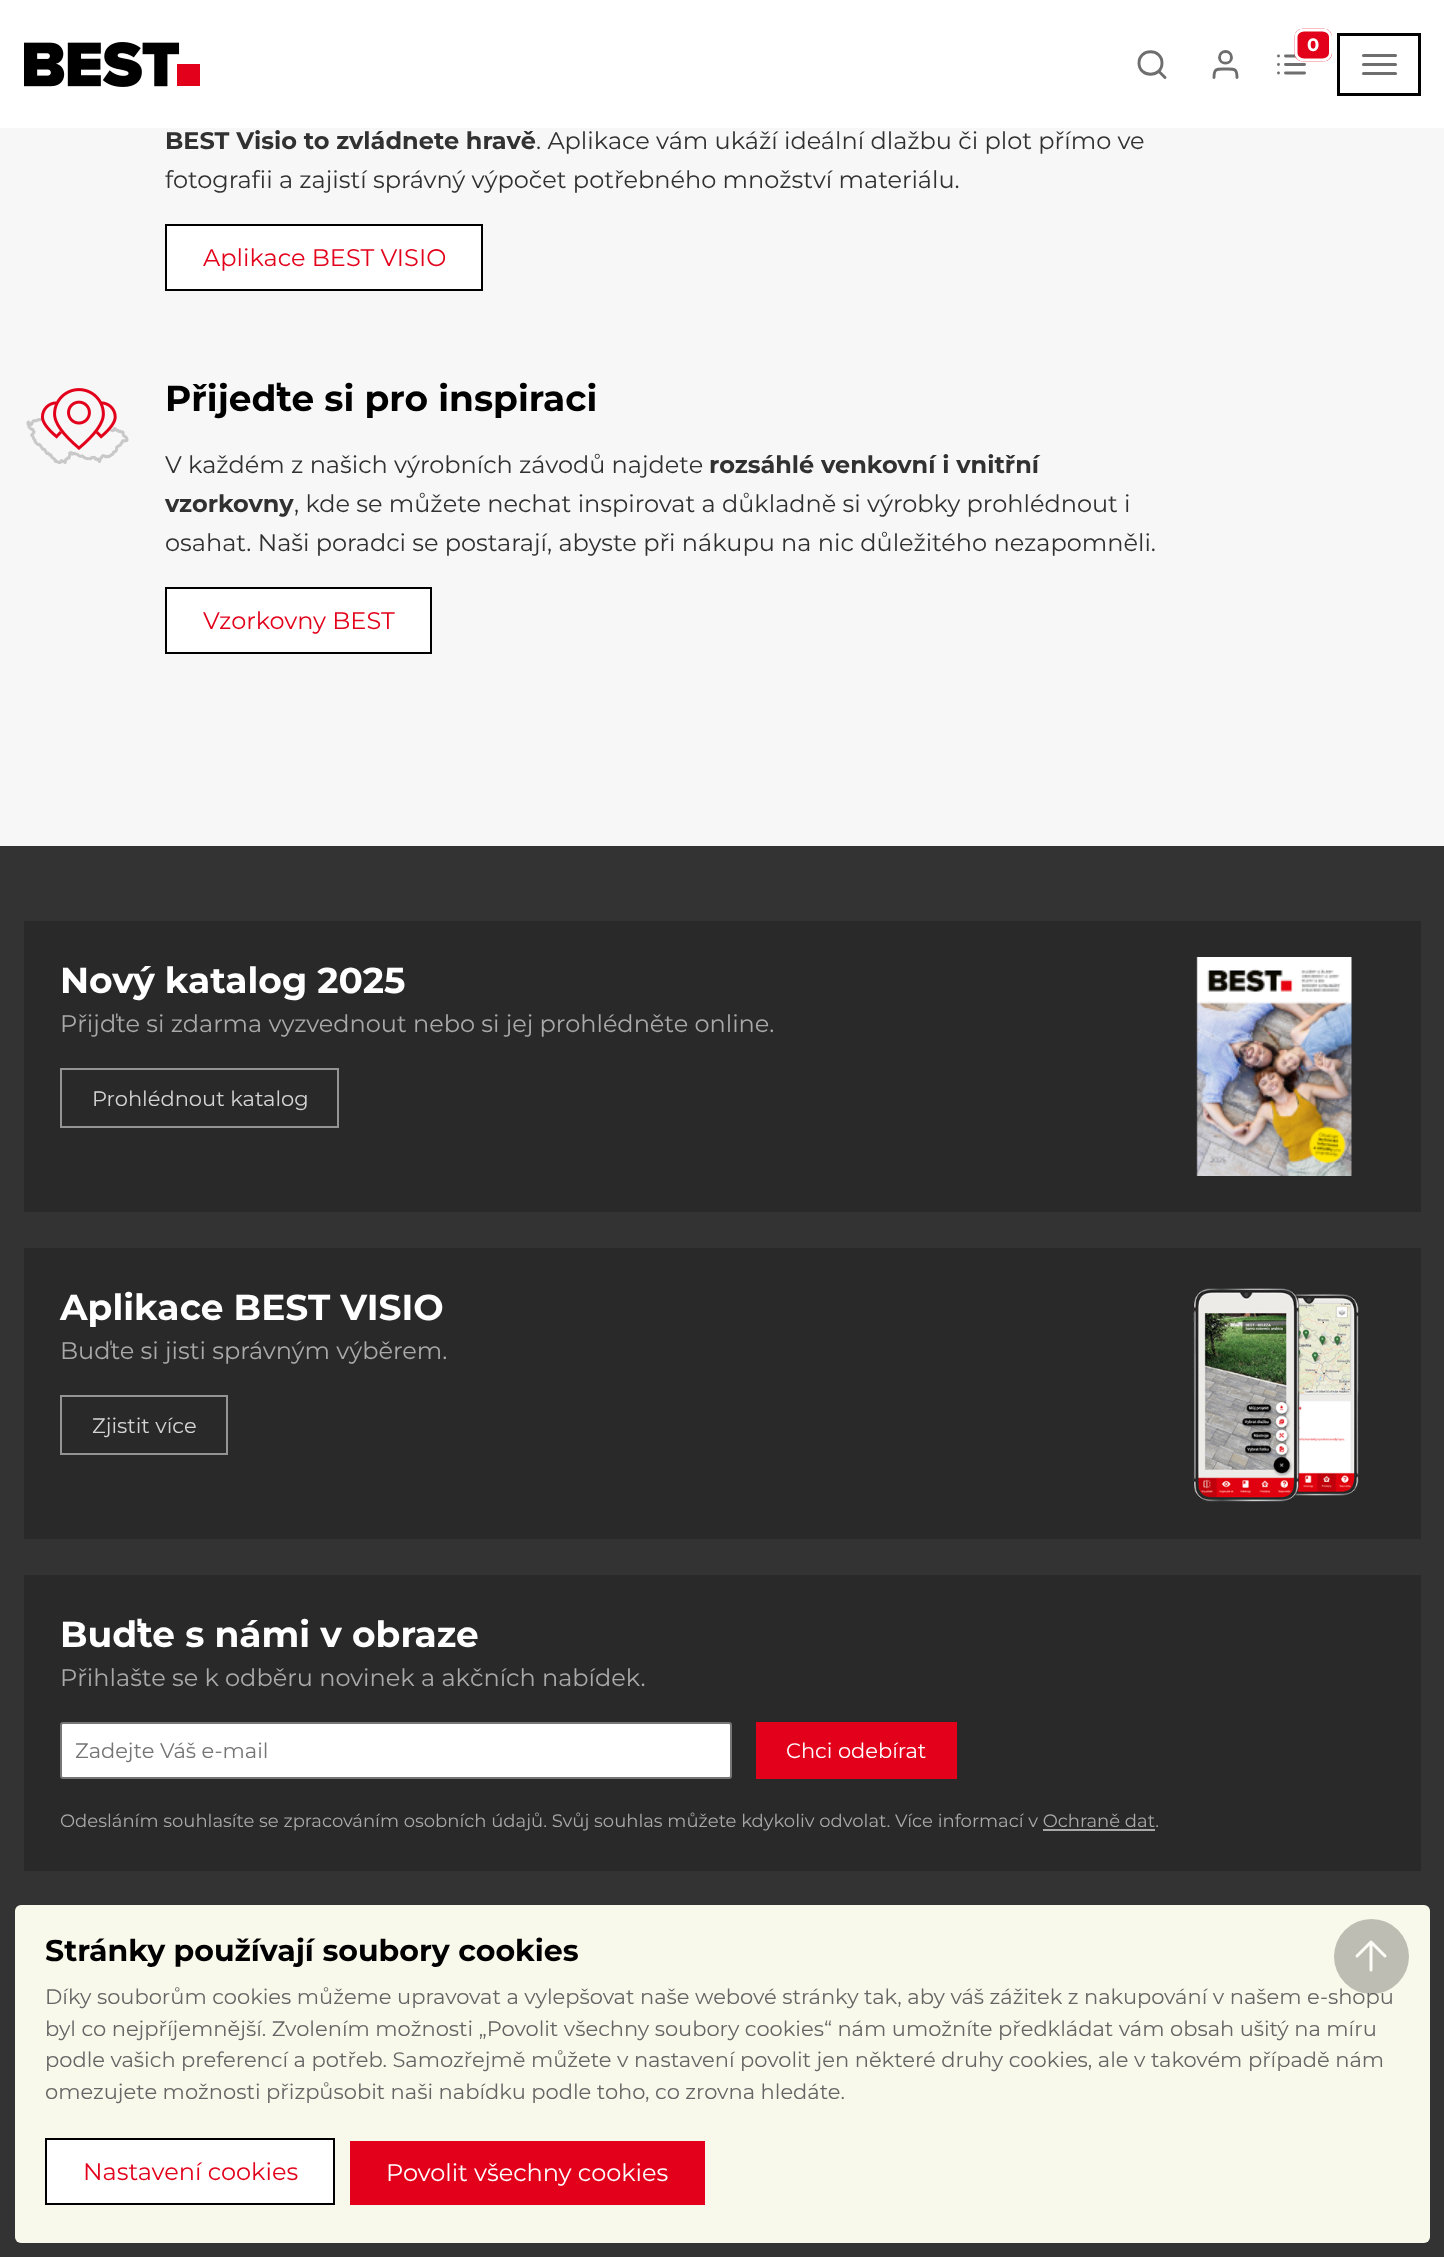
(async () => {
  const canvas = document.querySelector("canvas");
  canvas.width = 1444;
  canvas.height = 2257;
  const ctx = canvas.getContext("2d");
  ctx.miterLimit = 4;
  ctx.fontKerning = "normal";
  async function loadImage(src) {
    const img = new Image();
    img.src = src;
    await img.decode();
    return img;
  }
  let path;

  ctx.fillStyle = "#f7f7f7";
  ctx.fillRect(0, 0, 1444, 2257);
  ctx.fillStyle = "#ffffff";
  ctx.fillRect(0, 0, 1444, 128);
  ctx.drawImage(await loadImage("img/1.png"), 24, 42, 176, 45);
  path = new Path2D("M1285.5 56H1304.5M1285.5 64.5H1304.5M1285.5 73H1304.5M1278.5 56H1278.5M1278.5 64.5H1278.5M1278.5 73H1278.5");
  ctx.strokeStyle = "#6e6e6e";
  ctx.lineWidth = 2.9;
  ctx.lineCap = "round";
  ctx.lineJoin = "round";
  ctx.stroke(path);
  ctx.fillStyle = "#e2001a";
  path = new Path2D("M1304 28.5H1322.5C1328 28.5 1332 32 1332 37V53C1332 58 1328 61.5 1322.5 61.5H1304C1298.5 61.5 1294.5 58 1294.5 53V37C1294.5 32 1298.5 28.5 1304 28.5Z");
  ctx.fill(path);
  path = new Path2D("M1304 30H1322.5C1327 30 1330.5 33 1330.5 37V53C1330.5 57 1327 60 1322.5 60H1304C1299.5 60 1296 57 1296 53V37C1296 33 1299.5 30 1304 30Z");
  ctx.strokeStyle = "#ffffff";
  ctx.lineWidth = 3;
  ctx.lineCap = "butt";
  ctx.lineJoin = "miter";
  ctx.stroke(path);
  ctx.fillStyle = "#6e6e6e";
  ctx.beginPath();
  ctx.roundRect(1362, 54, 35, 3, 1.5);
  ctx.fill();
  ctx.beginPath();
  ctx.roundRect(1362, 72, 35, 3, 1.5);
  ctx.fill();
  ctx.beginPath();
  ctx.roundRect(1362, 63, 35, 3, 1.5);
  ctx.fill();
  ctx.strokeStyle = "#000000";
  ctx.strokeRect(1338.5, 34.5, 81, 60);
  path = new Path2D("M1165 77.5L1158.5 71M1162 63C1162 78 1139 78 1139 63C1139 48 1162 48 1162 63Z");
  ctx.strokeStyle = "#6e6e6e";
  ctx.lineWidth = 2.9;
  ctx.lineCap = "round";
  ctx.lineJoin = "round";
  ctx.stroke(path);
  path = new Path2D("M1237 77.5C1237 68 1234 69 1225.5 69C1217 69 1214 68 1214 77.5M1231.5 57.5C1231.5 65 1219.5 65 1219.5 57.5C1219.5 49.5 1231.5 49.5 1231.5 57.5Z");
  ctx.stroke(path);
  ctx.fillStyle = "#ffffff";
  ctx.beginPath();
  ctx.rect(166, 225, 316, 65);
  ctx.fill();
  ctx.strokeStyle = "#000000";
  ctx.lineWidth = 2;
  ctx.lineJoin = "miter";
  ctx.stroke();
  ctx.drawImage(await loadImage("img/2.png"), 26, 388, 103, 77);
  ctx.beginPath();
  ctx.rect(166, 588, 265, 65);
  ctx.fill();
  ctx.stroke();
  ctx.fillStyle = "#333333";
  ctx.fillRect(0, 846, 1444, 1411);
  ctx.fillStyle = "#292929";
  ctx.fillRect(24, 921, 1397, 291);
  ctx.strokeStyle = "#949494";
  ctx.strokeRect(61, 1069, 277, 58);
  ctx.drawImage(await loadImage("img/3.png"), 1196, 957, 156, 219);
  ctx.fillRect(24, 1248, 1397, 291);
  ctx.strokeRect(61, 1396, 166, 58);
  ctx.drawImage(await loadImage("img/4.png"), 1193, 1288, 166, 214);
  ctx.fillRect(24, 1575, 1397, 296);
  ctx.fillStyle = "#ffffff";
  ctx.beginPath();
  ctx.roundRect(61, 1723, 670, 55, 2);
  ctx.fill();
  ctx.strokeStyle = "#767676";
  ctx.stroke();
  ctx.fillStyle = "#e2001a";
  ctx.fillRect(756, 1722, 201, 57);
  ctx.fillStyle = "#a9a9a9";
  ctx.fillRect(1043, 1829, 112, 2);
  ctx.fillStyle = "#f9f9eb";
  ctx.beginPath();
  ctx.roundRect(15, 1905, 1415, 338, 6);
  ctx.fill();
  ctx.fillStyle = "#ffffff";
  ctx.beginPath();
  ctx.rect(46, 2139, 288, 65);
  ctx.fill();
  ctx.strokeStyle = "#000000";
  ctx.stroke();
  ctx.fillStyle = "#e2001a";
  ctx.fillRect(350, 2141, 355, 64);
  ctx.font = "bold 18px Montserrat";
  ctx.fillStyle = "#ffffff";
  ctx.fillText("0", 1307, 51);
  ctx.font = "bold 24px Montserrat";
  ctx.fillStyle = "#313131";
  ctx.fillText("BEST Visio to zvládnete hravě", 165, 149);
  ctx.font = "24px Montserrat";
  ctx.fillText(". Aplikace vám ukáží ideální dlažbu či plot přímo ve", 536, 149);
  ctx.fillText("fotografii a zajistí správný výpočet potřebného množství materiálu.", 165, 188);
  ctx.fillStyle = "#e2001a";
  ctx.fillText("Aplikace BEST VISIO", 203, 266);
  ctx.font = "bold 36px Montserrat";
  ctx.fillStyle = "#000000";
  ctx.fillText("Přijeďte si pro inspiraci", 165, 411);
  ctx.font = "24px Montserrat";
  ctx.fillStyle = "#313131";
  ctx.fillText("V každém z našich výrobních závodů najdete", 165, 473);
  ctx.font = "bold 24px Montserrat";
  ctx.fillText("rozsáhlé venkovní i vnitřní", 709, 473);
  ctx.fillText("vzorkovny", 165, 512);
  ctx.font = "24px Montserrat";
  ctx.fillText(", kde se můžete nechat inspirovat a důkladně si výrobky prohlédnout i", 294, 512);
  ctx.fillText("osahat. Naši poradci se postarají, abyste při nákupu na nic důležitého nezapomněli.", 165, 551);
  ctx.fillStyle = "#e2001a";
  ctx.fillText("Vzorkovny BEST", 203, 629);
  ctx.font = "bold 36px Montserrat";
  ctx.fillStyle = "#ffffff";
  ctx.fillText("Nový katalog 2025", 60, 993);
  ctx.font = "24px Montserrat";
  ctx.fillStyle = "#a9a9a9";
  ctx.fillText("Přijďte si zdarma vyzvednout nebo si jej prohlédněte online.", 60, 1032);
  ctx.font = "21px Montserrat";
  ctx.fillStyle = "#d4d4d4";
  ctx.fillText("Prohlédnout katalog", 92, 1106);
  ctx.font = "bold 36px Montserrat";
  ctx.fillStyle = "#ffffff";
  ctx.fillText("Aplikace BEST VISIO", 60, 1320);
  ctx.font = "24px Montserrat";
  ctx.fillStyle = "#a9a9a9";
  ctx.fillText("Buďte si jisti správným výběrem.", 60, 1359);
  ctx.font = "21px Montserrat";
  ctx.fillStyle = "#d4d4d4";
  ctx.fillText("Zjistit více", 92, 1433);
  ctx.font = "bold 36px Montserrat";
  ctx.fillStyle = "#ffffff";
  ctx.fillText("Buďte s námi v obraze", 60, 1647);
  ctx.font = "24px Montserrat";
  ctx.fillStyle = "#a9a9a9";
  ctx.fillText("Přihlašte se k odběru novinek a akčních nabídek.", 60, 1686);
  ctx.font = "21px Montserrat";
  ctx.fillStyle = "#757575";
  ctx.fillText("Zadejte Váš e-mail", 75, 1758);
  ctx.fillStyle = "#ffffff";
  ctx.fillText("Chci odebírat", 786, 1758);
  ctx.font = "18px Montserrat";
  ctx.fillStyle = "#a9a9a9";
  ctx.fillText("Odesláním souhlasíte se zpracováním osobních údajů. Svůj souhlas můžete kdykoliv odvolat. Více informací v Ochraně dat.", 60, 1827);
  ctx.font = "bold 30px Montserrat";
  ctx.fillStyle = "#000000";
  ctx.fillText("Stránky používají soubory cookies", 45, 1961);
  ctx.font = "21px Montserrat";
  ctx.fillStyle = "#666666";
  ctx.fillText("Díky souborům cookies můžeme upravovat a vylepšovat naše webové stránky tak, aby váš zážitek z nakupování v našem e-shopu", 45, 2004);
  ctx.fillStyle = "rgba(0, 0, 0, 0.24)";
  ctx.beginPath();
  ctx.arc(1371.5, 1956.5, 37.5, 0, Math.PI * 2);
  ctx.fill();
  path = new Path2D("M1371 1970V1942M1371 1942L1357 1956M1371 1942L1385 1956");
  ctx.strokeStyle = "#fdfdf7";
  ctx.lineWidth = 3;
  ctx.lineJoin = "round";
  ctx.stroke(path);
  ctx.fillStyle = "#666666";
  for (const [text, x, y] of [
    ["byl co nejpříjemnější. Zvolením možnosti „Povolit všechny soubory cookies“ nám umožníte předkládat vám obsah ušitý na míru", 45, 2036],
    ["podle vašich preferencí a potřeb. Samozřejmě můžete v nastavení povolit jen některé druhy cookies, ale v takovém případě nám", 45, 2067],
    ["omezujete možnosti přizpůsobit naši nabídku podle toho, co zrovna hledáte.", 45, 2099],
  ]) {
    ctx.fillText(text, x, y);
  }
  ctx.font = "24px Montserrat";
  ctx.fillStyle = "#e2001a";
  ctx.fillText("Nastavení cookies", 83, 2180);
  ctx.fillStyle = "#ffffff";
  ctx.fillText("Povolit všechny cookies", 386, 2181);
})();
